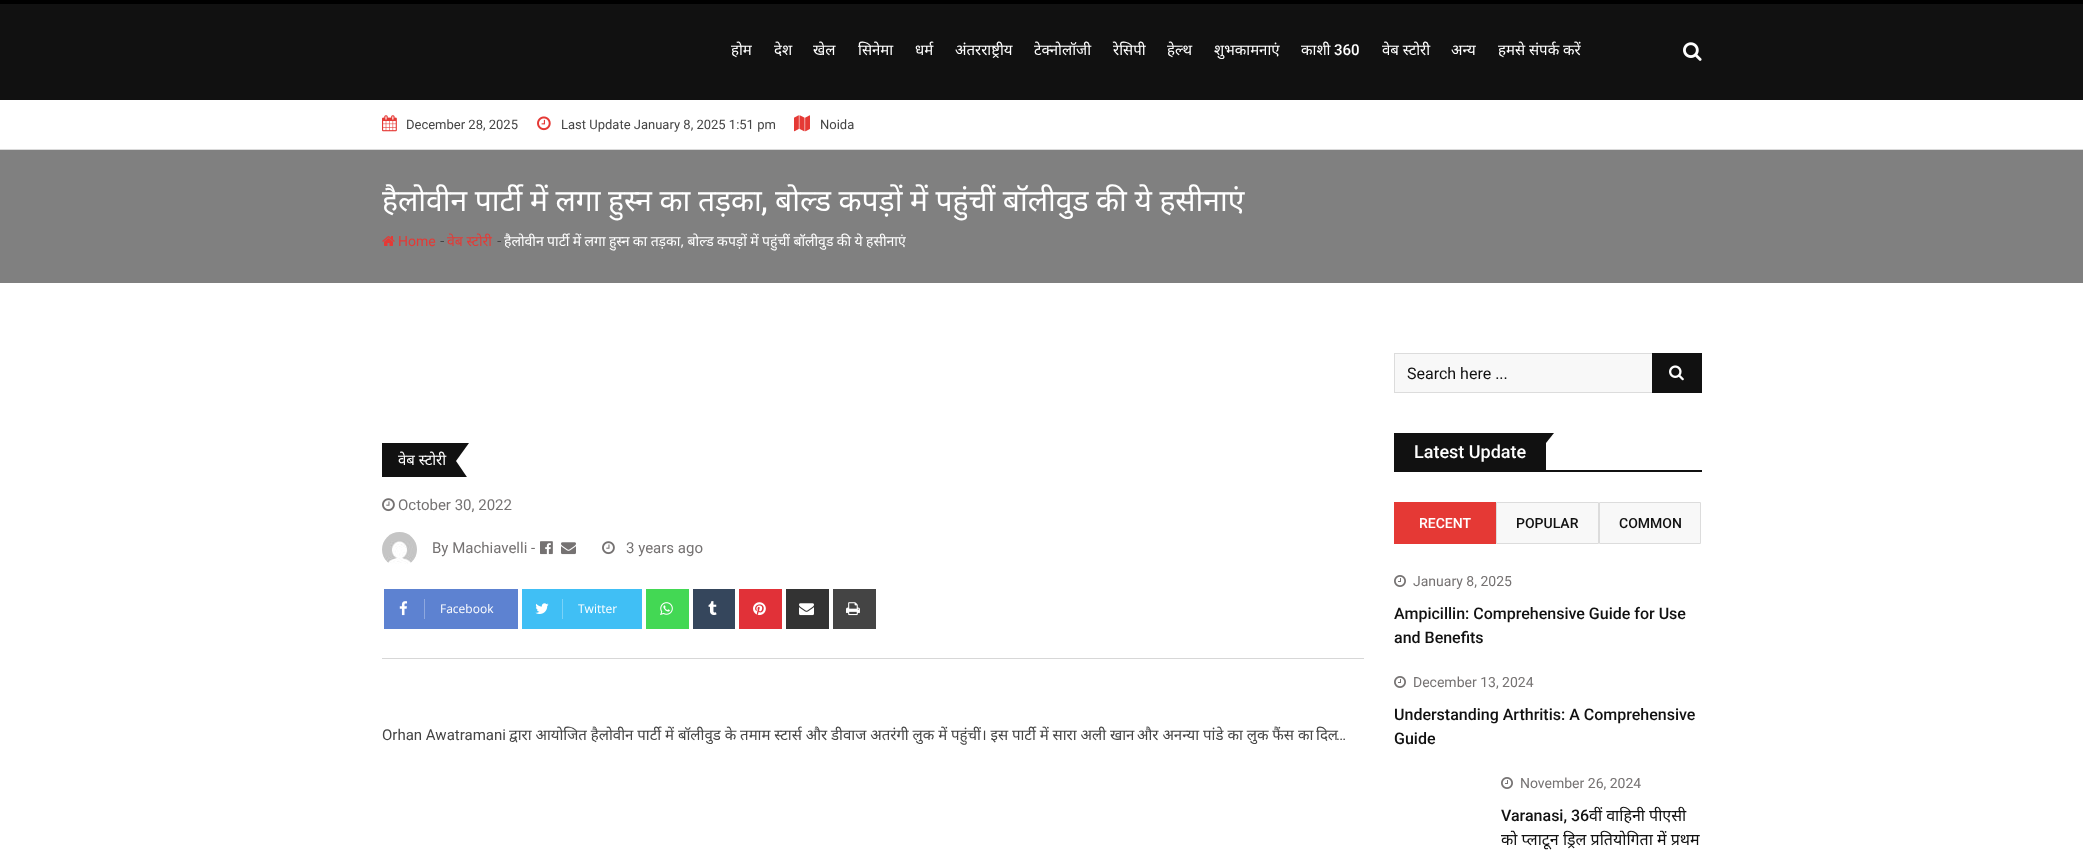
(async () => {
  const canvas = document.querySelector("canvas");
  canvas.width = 2083;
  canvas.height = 860;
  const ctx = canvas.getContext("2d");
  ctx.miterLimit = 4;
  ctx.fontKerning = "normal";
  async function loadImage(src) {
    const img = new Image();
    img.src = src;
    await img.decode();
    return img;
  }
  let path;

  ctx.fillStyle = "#ffffff";
  ctx.fillRect(0, 0, 2083, 860);
  ctx.fillStyle = "#000000";
  ctx.fillRect(0, 0, 2083, 4);
  ctx.fillStyle = "#111111";
  ctx.fillRect(0, 4, 2083, 96);
  ctx.drawImage(await loadImage("img/1.png"), 1683, 42, 19, 19);
  ctx.drawImage(await loadImage("img/2.png"), 382, 115, 15, 17);
  ctx.drawImage(await loadImage("img/3.png"), 537, 116, 14, 15);
  ctx.drawImage(await loadImage("img/4.png"), 794, 115, 16, 17);
  ctx.fillStyle = "#dadada";
  ctx.fillRect(0, 149, 2083, 1);
  ctx.fillStyle = "#808080";
  ctx.fillRect(0, 150, 2083, 133);
  ctx.drawImage(await loadImage("img/5.png"), 382, 236, 13, 10);
  ctx.fillStyle = "#111111";
  ctx.fillRect(382, 443, 87, 34);
  ctx.fillStyle = "#ffffff";
  path = new Path2D("M469 443V480L456 461Z");
  ctx.fill(path);
  ctx.drawImage(await loadImage("img/6.png"), 382, 498, 13, 14);
  ctx.drawImage(await loadImage("img/7.png"), 382, 532, 35, 32);
  ctx.drawImage(await loadImage("img/8.png"), 540, 541, 13, 14);
  ctx.drawImage(await loadImage("img/9.png"), 561, 542, 15, 13);
  ctx.drawImage(await loadImage("img/6.png"), 602, 541, 13, 14);
  ctx.fillStyle = "#5d82d1";
  ctx.fillRect(384, 589, 134, 40);
  ctx.drawImage(await loadImage("img/10.png"), 399, 601, 9, 15);
  ctx.fillStyle = "#8ea8df";
  ctx.fillRect(424, 599, 1, 20);
  ctx.fillStyle = "#40bff5";
  ctx.fillRect(522, 589, 120, 40);
  ctx.drawImage(await loadImage("img/11.png"), 535, 603, 14, 11);
  ctx.fillStyle = "#79d2f8";
  ctx.fillRect(562, 599, 1, 20);
  ctx.fillStyle = "#43d854";
  ctx.fillRect(646, 589, 43, 40);
  ctx.drawImage(await loadImage("img/12.png"), 660, 602, 13, 13);
  ctx.fillStyle = "#35465c";
  ctx.fillRect(693, 589, 42, 40);
  ctx.drawImage(await loadImage("img/13.png"), 708, 601, 9, 15);
  ctx.fillStyle = "#e13138";
  ctx.fillRect(739, 589, 43, 40);
  ctx.drawImage(await loadImage("img/14.png"), 753, 602, 13, 14);
  ctx.fillStyle = "#333333";
  ctx.fillRect(786, 589, 43, 40);
  ctx.drawImage(await loadImage("img/15.png"), 799, 603, 15, 13);
  ctx.fillStyle = "#444444";
  ctx.fillRect(833, 589, 43, 40);
  ctx.drawImage(await loadImage("img/16.png"), 846, 602, 14, 14);
  ctx.fillStyle = "#d7d7d7";
  ctx.fillRect(382, 658, 982, 1);
  ctx.fillStyle = "#f8f8f8";
  ctx.fillRect(1395, 354, 257, 38);
  ctx.strokeStyle = "#dcdcdc";
  ctx.strokeRect(1394.5, 353.5, 307, 39);
  ctx.fillStyle = "#111111";
  ctx.fillRect(1652, 353, 50, 40);
  ctx.drawImage(await loadImage("img/17.png"), 1669, 365, 15, 16);
  ctx.fillRect(1394, 470, 308, 2);
  ctx.fillRect(1394, 433, 152, 37);
  path = new Path2D("M1546 433H1554L1546 443Z");
  ctx.fill(path);
  ctx.fillStyle = "#e53935";
  ctx.fillRect(1394, 502, 102, 42);
  ctx.fillStyle = "#f8f8f8";
  ctx.beginPath();
  ctx.rect(1496.5, 502.5, 102, 41);
  ctx.fill();
  ctx.stroke();
  ctx.beginPath();
  ctx.rect(1599.5, 502.5, 101, 41);
  ctx.fill();
  ctx.stroke();
  ctx.drawImage(await loadImage("img/18.png"), 1394, 575, 12, 12);
  ctx.drawImage(await loadImage("img/18.png"), 1394, 676, 12, 12);
  ctx.drawImage(await loadImage("img/18.png"), 1501, 777, 12, 12);
  ctx.font = "15px Noto Sans";
  ctx.fillStyle = "#ffffff";
  for (const [text, x, y] of [
    ["होम", 731, 55],
    ["देश", 774, 55],
    ["खेल", 813, 55],
    ["सिनेमा", 858, 55],
    ["धर्म", 915, 55],
    ["अंतरराष्ट्रीय", 955, 55],
    ["टेक्नोलॉजी", 1034, 55],
    ["रेसिपी", 1113, 55],
    ["हेल्थ", 1167, 55],
    ["शुभकामनाएं", 1214, 55],
    ["काशी", 1301, 55],
  ]) {
    ctx.fillText(text, x, y);
  }
  ctx.font = "500 15px Roboto";
  ctx.fillText("360", 1334, 55);
  ctx.font = "15px Noto Sans";
  for (const [text, x, y] of [
    ["वेब स्टोरी", 1382, 55],
    ["अन्य", 1451, 55],
    ["हमसे संपर्क करें", 1498, 55],
  ]) {
    ctx.fillText(text, x, y);
  }
  ctx.font = "13px Roboto";
  ctx.fillStyle = "#444444";
  for (const [text, x, y] of [
    ["December 28, 2025", 406, 129],
    ["Last Update January 8, 2025 1:51 pm", 561, 129],
    ["Noida", 820, 129],
  ]) {
    ctx.fillText(text, x, y);
  }
  ctx.wordSpacing = "-0.25px";
  ctx.font = "30px Noto Sans";
  ctx.fillStyle = "#ffffff";
  ctx.fillText("हैलोवीन पार्टी में लगा हुस्न का तड़का", 382, 211);
  ctx.wordSpacing = "0px";
  ctx.font = "500 30px Roboto";
  ctx.fillText(",", 761, 211);
  ctx.wordSpacing = "-0.25px";
  ctx.font = "30px Noto Sans";
  ctx.fillText("बोल्ड कपड़ों में पहुंचीं बॉलीवुड की ये हसीनाएं", 775, 211);
  ctx.wordSpacing = "0px";
  ctx.font = "14px Roboto";
  ctx.fillStyle = "#e53935";
  ctx.fillText("Home", 398, 246);
  ctx.font = "italic 15px Roboto";
  ctx.fillStyle = "#444444";
  ctx.fillText("-", 439, 246);
  ctx.font = "14px Noto Sans";
  ctx.fillStyle = "#e53935";
  ctx.fillText("वेब स्टोरी", 447, 246);
  ctx.font = "italic 15px Roboto";
  ctx.fillStyle = "#444444";
  ctx.fillText("-", 496, 246);
  ctx.wordSpacing = "-0.25px";
  ctx.font = "14px Noto Sans";
  ctx.fillStyle = "#ffffff";
  ctx.fillText("हैलोवीन पार्टी में लगा हुस्न का तड़का, बोल्ड कपड़ों में पहुंचीं बॉलीवुड की ये हसीनाएं", 504, 246);
  ctx.wordSpacing = "0px";
  ctx.font = "15px Noto Sans";
  ctx.fillText("वेब स्टोरी", 398, 465);
  ctx.font = "15px Roboto";
  ctx.fillStyle = "#757272";
  for (const [text, x, y] of [
    ["October 30, 2022", 398, 510],
    ["By Machiavelli -", 432, 553],
    ["3 years ago", 626, 553],
  ]) {
    ctx.fillText(text, x, y);
  }
  ctx.font = "12px Open Sans";
  ctx.fillStyle = "#ffffff";
  ctx.fillText("Facebook", 440, 613);
  ctx.fillText("Twitter", 578, 613);
  ctx.font = "15px Roboto";
  ctx.fillStyle = "#444444";
  ctx.fillText("Orhan Awatramani", 382, 740);
  ctx.font = "15px Noto Sans";
  ctx.fillText("द्वारा आयोजित हैलोवीन पार्टी में बॉलीवुड के तमाम स्टार्स और डीवाज अतरंगी लुक में पहुंचीं। इस पार्टी में सारा अली खान", 509, 740);
  ctx.fillText("और अनन्या पांडे का लुक फैंस का", 1137, 740);
  ctx.fillText("दिल", 1316, 740);
  ctx.font = "15px Roboto";
  ctx.fillText("…", 1336, 740);
  ctx.font = "16px Roboto";
  ctx.fillStyle = "#111111";
  ctx.fillText("Search here ...", 1407, 379);
  ctx.font = "500 18px Roboto";
  ctx.fillStyle = "#ffffff";
  ctx.fillText("Latest Update", 1414, 458);
  ctx.font = "500 14px Roboto";
  ctx.fillText("RECENT", 1419, 528);
  ctx.fillStyle = "#111111";
  ctx.fillText("POPULAR", 1516, 528);
  ctx.fillText("COMMON", 1619, 528);
  ctx.font = "14px Roboto";
  ctx.fillStyle = "#757272";
  ctx.fillText("January 8, 2025", 1413, 586);
  ctx.font = "500 16px Roboto";
  ctx.fillStyle = "#111111";
  ctx.fillText("Ampicillin: Comprehensive Guide for Use", 1394, 619);
  ctx.fillText("and Benefits", 1394, 643);
  ctx.font = "14px Roboto";
  ctx.fillStyle = "#757272";
  ctx.fillText("December 13, 2024", 1413, 687);
  ctx.font = "500 16px Roboto";
  ctx.fillStyle = "#111111";
  ctx.fillText("Understanding Arthritis: A Comprehensive", 1394, 720);
  ctx.fillText("Guide", 1394, 744);
  ctx.font = "14px Roboto";
  ctx.fillStyle = "#757272";
  ctx.fillText("November 26, 2024", 1520, 788);
  ctx.font = "500 16px Roboto";
  ctx.fillStyle = "#111111";
  ctx.fillText("Varanasi, 36", 1501, 821);
  ctx.font = "16px Noto Sans";
  ctx.fillText("वीं वाहिनी पीएसी", 1589, 821);
  ctx.fillText("को प्लाटून ड्रिल प्रतियोगिता में प्रथम", 1501, 845);
})();
